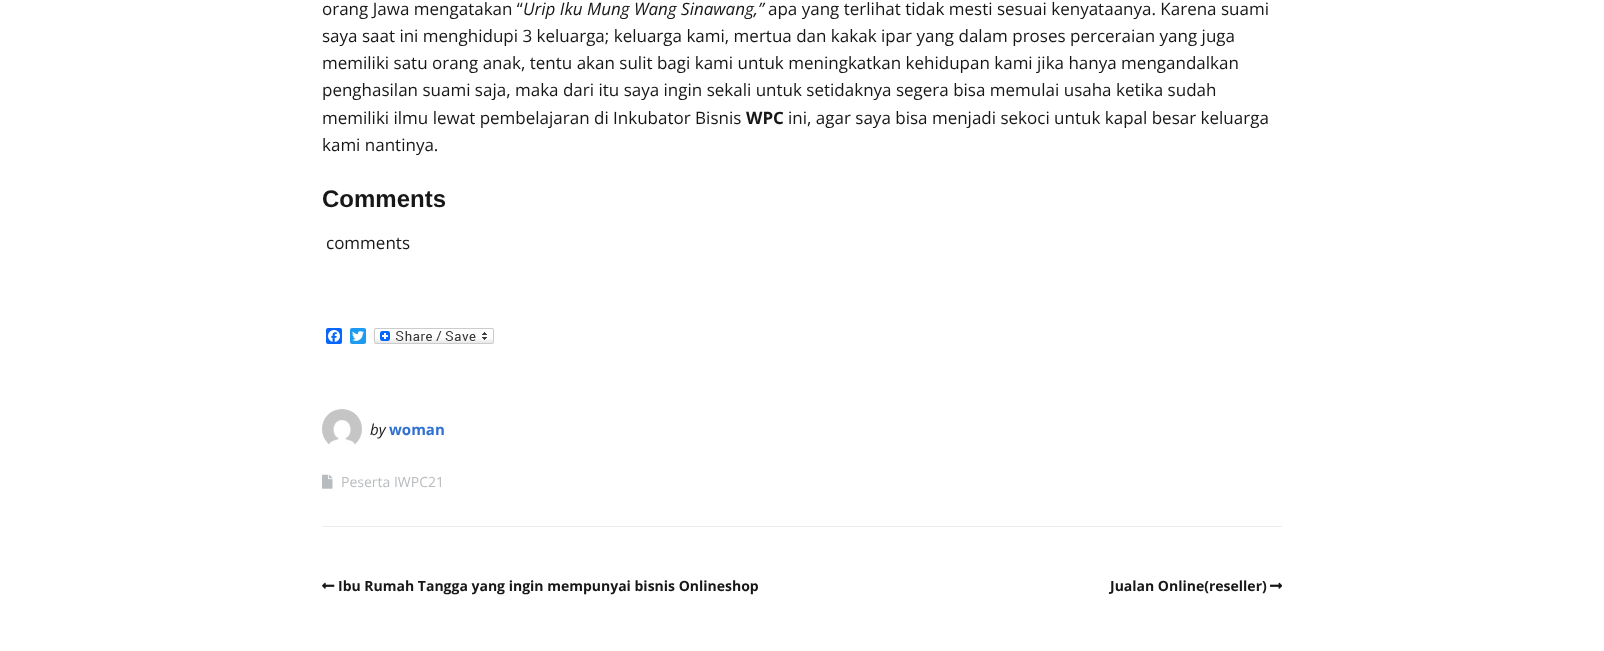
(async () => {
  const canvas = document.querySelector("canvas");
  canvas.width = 1604;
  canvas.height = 651;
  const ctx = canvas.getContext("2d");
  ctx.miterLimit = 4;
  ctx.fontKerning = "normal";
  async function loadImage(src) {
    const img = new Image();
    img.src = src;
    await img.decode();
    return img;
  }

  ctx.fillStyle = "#ffffff";
  ctx.fillRect(0, 0, 1604, 651);
  ctx.fillStyle = "#eaecee";
  ctx.fillRect(322, 526, 960, 1);
  ctx.fillStyle = "#0866ff";
  ctx.beginPath();
  ctx.roundRect(326, 328, 16, 16, 2);
  ctx.fill();
  ctx.drawImage(await loadImage("img/1.png"), 328, 330, 12, 12);
  ctx.fillStyle = "#1d9bf0";
  ctx.beginPath();
  ctx.roundRect(350, 328, 16, 16, 2);
  ctx.fill();
  ctx.drawImage(await loadImage("img/2.png"), 352, 331, 12, 10);
  ctx.drawImage(await loadImage("img/3.png"), 374, 328, 120, 16);
  ctx.drawImage(await loadImage("img/4.png"), 322, 409, 40, 36);
  ctx.drawImage(await loadImage("img/5.png"), 322, 474, 11, 15);
  ctx.drawImage(await loadImage("img/6.png"), 322, 582, 13, 7);
  ctx.drawImage(await loadImage("img/7.png"), 1270, 582, 12, 7);
  ctx.font = "17px Open Sans";
  ctx.fillStyle = "#171717";
  ctx.fillText("orang Jawa mengatakan “", 322, 15);
  ctx.font = "italic 17px Open Sans";
  ctx.fillText("Urip Iku Mung Wang Sinawang,”", 523, 15);
  ctx.font = "17px Open Sans";
  for (const [text, x, y] of [
    ["apa yang terlihat tidak mesti sesuai kenyataanya. Karena suami", 768, 15],
    ["saya saat ini menghidupi 3 keluarga; keluarga kami, mertua dan kakak ipar yang dalam proses perceraian yang juga", 322, 42],
    ["memiliki satu orang anak, tentu akan sulit bagi kami untuk meningkatkan kehidupan kami jika hanya mengandalkan", 322, 69],
    ["penghasilan suami saja, maka dari itu saya ingin sekali untuk setidaknya segera bisa memulai usaha ketika sudah", 322, 96],
    ["memiliki ilmu lewat pembelajaran di Inkubator Bisnis", 322, 124],
  ]) {
    ctx.fillText(text, x, y);
  }
  ctx.font = "bold 17px Open Sans";
  ctx.fillText("WPC", 746, 124);
  ctx.font = "17px Open Sans";
  ctx.fillText("ini, agar saya bisa menjadi sekoci untuk kapal besar keluarga", 788, 124);
  ctx.fillText("kami nantinya.", 322, 151);
  ctx.font = "bold 24px Liberation Sans";
  ctx.fillText("Comments", 322, 207);
  ctx.font = "17px Open Sans";
  ctx.fillText("comments", 326, 249);
  ctx.font = "italic 15px Open Sans";
  ctx.fillText("by", 370, 435);
  ctx.font = "bold 15px Open Sans";
  ctx.fillStyle = "#3070d1";
  ctx.fillText("woman", 389, 435);
  ctx.font = "14px Open Sans";
  ctx.fillStyle = "#b9bcbf";
  ctx.fillText("Peserta IWPC21", 341, 487);
  ctx.font = "bold 14px Open Sans";
  ctx.fillStyle = "#171717";
  ctx.fillText("Ibu Rumah Tangga yang ingin mempunyai bisnis Onlineshop", 338, 591);
  ctx.fillText("Jualan Online(reseller)", 1110, 591);
})();
